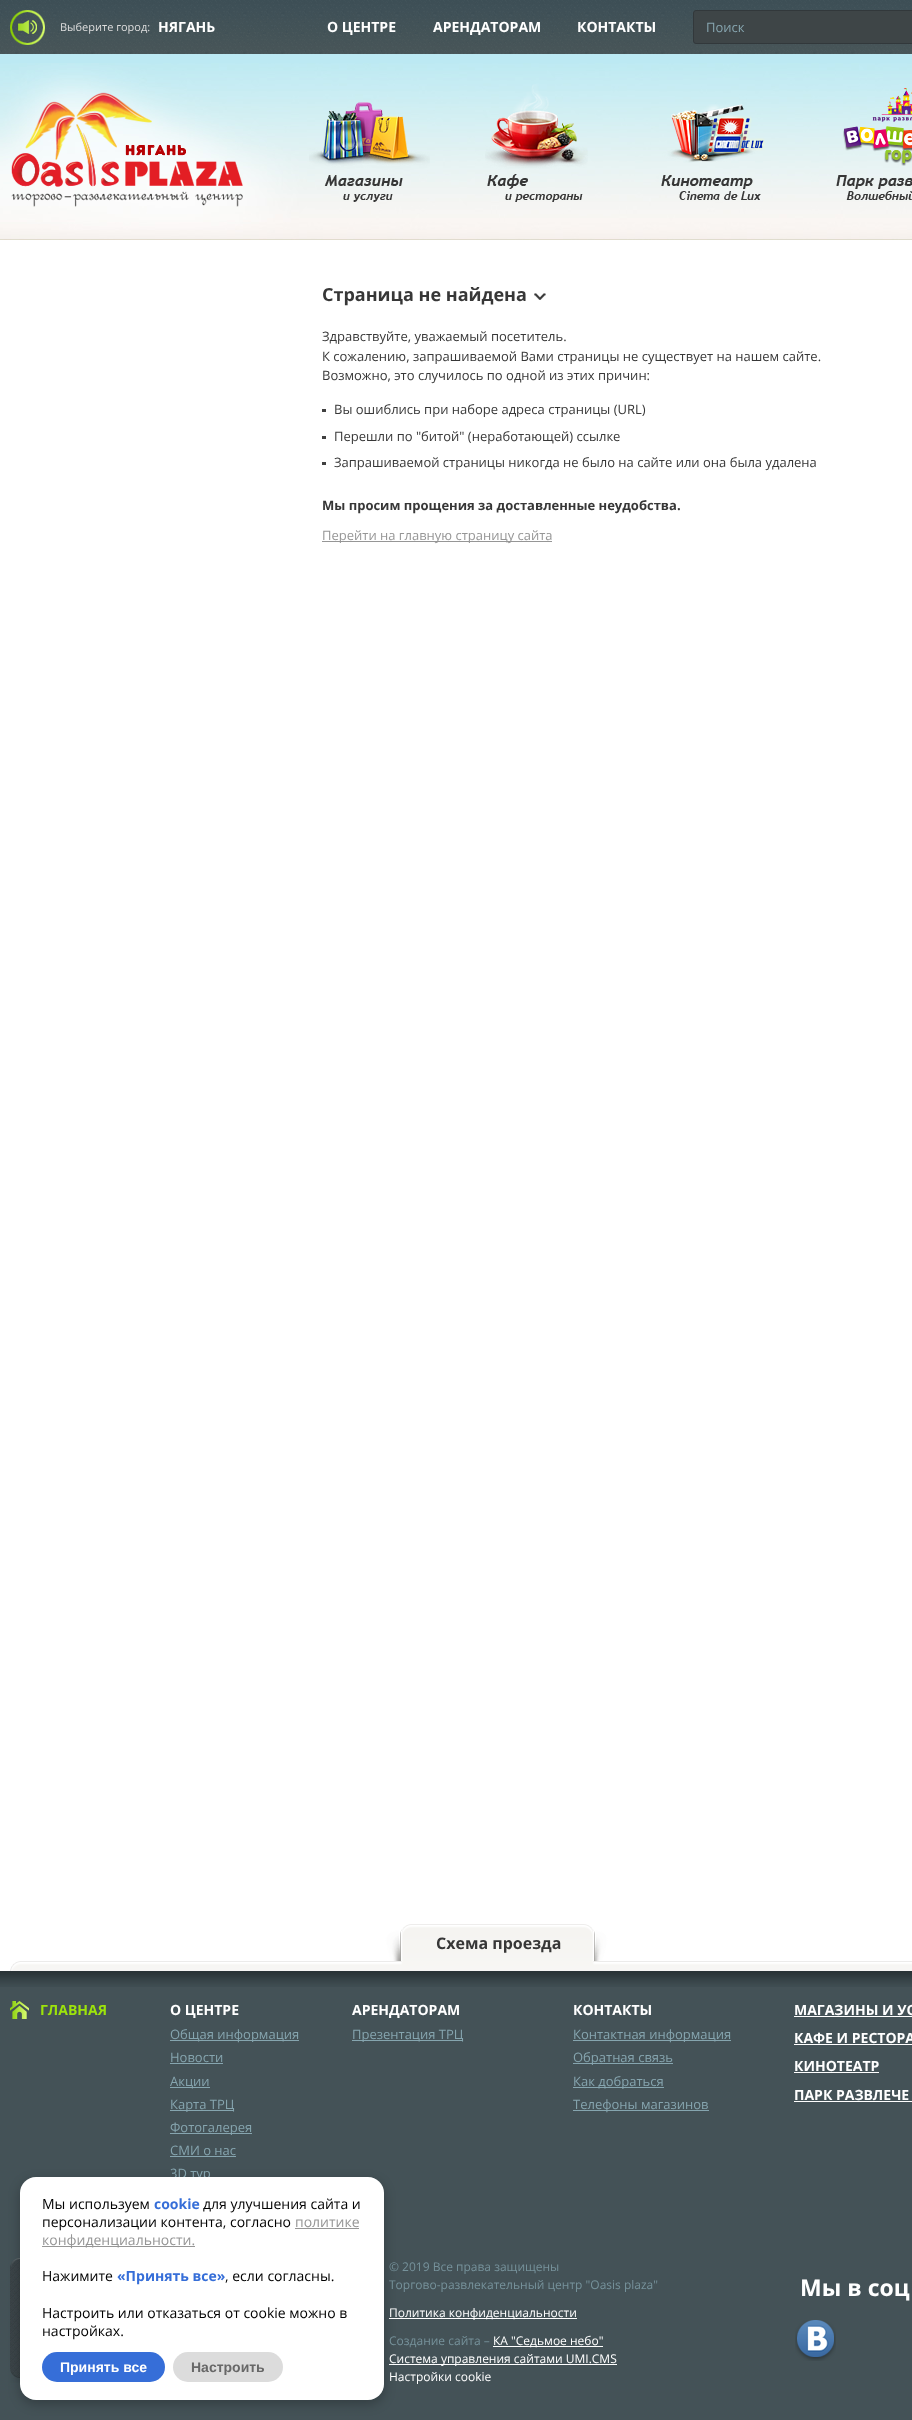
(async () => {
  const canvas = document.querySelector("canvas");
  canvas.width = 912;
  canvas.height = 2420;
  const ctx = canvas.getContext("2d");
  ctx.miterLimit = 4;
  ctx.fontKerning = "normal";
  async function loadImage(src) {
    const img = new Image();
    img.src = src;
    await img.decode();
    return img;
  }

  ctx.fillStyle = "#ffffff";
  ctx.fillRect(0, 0, 912, 2420);
  ctx.drawImage(await loadImage("img/1.png"), 0, 0, 912, 54);
  ctx.drawImage(await loadImage("img/2.png"), 10, 10, 35, 35);
  ctx.fillStyle = "#3e4547";
  ctx.beginPath();
  ctx.roundRect(693.5, 10.5, 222, 33, 2.5);
  ctx.fill();
  ctx.strokeStyle = "#32383b";
  ctx.stroke();
  ctx.fillStyle = "#bce9f3";
  ctx.fillRect(0, 54, 912, 9);
  ctx.drawImage(await loadImage("img/3.png"), 0, 63, 912, 177);
  ctx.drawImage(await loadImage("img/4.png"), 11, 92, 232, 115);
  ctx.drawImage(await loadImage("img/5.png"), 309, 102, 121, 100);
  ctx.drawImage(await loadImage("img/6.png"), 485, 84, 103, 118);
  ctx.drawImage(await loadImage("img/7.png"), 661, 104, 104, 96);
  ctx.drawImage(await loadImage("img/8.png"), 836, 88, 76, 112);
  ctx.drawImage(await loadImage("img/9.png"), 534, 293, 12, 7);
  for (const [x, y, w, h, color] of [
    [322, 409, 4, 3, "#404040"],
    [322, 436, 4, 3, "#404040"],
    [322, 462, 4, 3, "#404040"],
    [322, 541, 230, 1, "#969696"],
  ]) {
    ctx.fillStyle = color;
    ctx.fillRect(x, y, w, h);
  }
  ctx.drawImage(await loadImage("img/10.png"), 10, 1924, 902, 47);
  ctx.fillStyle = "#445257";
  ctx.fillRect(0, 1987, 912, 433);
  ctx.drawImage(await loadImage("img/11.png"), 0, 1971, 912, 16);
  ctx.drawImage(await loadImage("img/12.png"), 10, 2001, 19, 18);
  for (const [x, y, w, h, color] of [
    [170, 2040, 129, 1, "#86a5af"],
    [170, 2063, 53, 1, "#86a5af"],
    [170, 2087, 40, 1, "#86a5af"],
    [170, 2110, 64, 1, "#86a5af"],
    [170, 2133, 82, 1, "#86a5af"],
    [170, 2156, 66, 1, "#86a5af"],
    [352, 2040, 111, 1, "#86a5af"],
    [573, 2040, 158, 1, "#86a5af"],
    [573, 2063, 100, 1, "#86a5af"],
    [573, 2087, 91, 1, "#86a5af"],
    [573, 2110, 136, 1, "#86a5af"],
    [794, 2016, 118, 1, "#ffffff"],
    [794, 2044, 118, 1, "#ffffff"],
    [794, 2072, 85, 1, "#ffffff"],
    [794, 2101, 118, 1, "#ffffff"],
  ]) {
    ctx.fillStyle = color;
    ctx.fillRect(x, y, w, h);
  }
  ctx.drawImage(await loadImage("img/13.png"), 10, 2258, 10, 125);
  for (const [x, y, w, h, color] of [
    [389, 2318, 188, 1, "#ffffff"],
    [493, 2346, 110, 1, "#ffffff"],
    [389, 2364, 228, 1, "#ffffff"],
  ]) {
    ctx.fillStyle = color;
    ctx.fillRect(x, y, w, h);
  }
  ctx.drawImage(await loadImage("img/14.png"), 795, 2320, 41, 41);
  ctx.fillStyle = "rgba(0, 0, 0, 0.25)";
  ctx.filter = "blur(6px)";
  ctx.beginPath();
  ctx.roundRect(20, 2181, 364, 223, 16);
  ctx.fill();
  ctx.filter = "none";
  ctx.font = "11px Open Sans";
  ctx.fillStyle = "#dddddd";
  ctx.fillText("Выберите город:", 60, 31);
  ctx.font = "bold 14px Open Sans";
  ctx.fillStyle = "#ffffff";
  for (const [text, x, y] of [
    ["НЯГАНЬ", 158, 32],
    ["О ЦЕНТРЕ", 327, 32],
    ["АРЕНДАТОРАМ", 433, 32],
    ["КОНТАКТЫ", 577, 32],
  ]) {
    ctx.fillText(text, x, y);
  }
  ctx.font = "13px Open Sans";
  ctx.fillStyle = "#86a5af";
  ctx.fillText("Поиск", 706, 32);
  ctx.font = "bold 18px Open Sans";
  ctx.fillStyle = "#373737";
  ctx.fillText("Страница не найдена", 322, 301);
  ctx.font = "13px Open Sans";
  for (const [text, x, y] of [
    ["Здравствуйте, уважаемый посетитель.", 322, 341],
    ["К сожалению, запрашиваемой Вами страницы не существует на нашем сайте.", 322, 361],
    ["Возможно, это случилось по одной из этих причин:", 322, 380],
    ["Вы ошиблись при наборе адреса страницы (URL)", 334, 414],
    ["Перешли по \"битой\" (неработающей) ссылке", 334, 441],
    ["Запрашиваемой страницы никогда не было на сайте или она была удалена", 334, 467],
  ]) {
    ctx.fillText(text, x, y);
  }
  ctx.font = "bold 13px Open Sans";
  ctx.fillText("Мы просим прощения за доставленные неудобства.", 322, 510);
  ctx.font = "13px Open Sans";
  ctx.fillStyle = "#969696";
  ctx.fillText("Перейти на главную страницу сайта", 322, 540);
  ctx.font = "bold 16px Open Sans";
  ctx.fillStyle = "#373737";
  ctx.fillText("Схема проезда", 436, 1949);
  ctx.font = "bold 14px Open Sans";
  ctx.fillStyle = "#9de30b";
  ctx.fillText("ГЛАВНАЯ", 40, 2015);
  ctx.fillStyle = "#ffffff";
  ctx.fillText("О ЦЕНТРЕ", 170, 2015);
  ctx.font = "13px Open Sans";
  ctx.fillStyle = "#86a5af";
  for (const [text, x, y] of [
    ["Общая информация", 170, 2039],
    ["Новости", 170, 2062],
    ["Акции", 170, 2086],
    ["Карта ТРЦ", 170, 2109],
    ["Фотогалерея", 170, 2132],
    ["СМИ о нас", 170, 2155],
    ["3D тур", 170, 2178],
  ]) {
    ctx.fillText(text, x, y);
  }
  ctx.font = "bold 14px Open Sans";
  ctx.fillStyle = "#ffffff";
  ctx.fillText("АРЕНДАТОРАМ", 352, 2015);
  ctx.font = "13px Open Sans";
  ctx.fillStyle = "#86a5af";
  ctx.fillText("Презентация ТРЦ", 352, 2039);
  ctx.font = "bold 14px Open Sans";
  ctx.fillStyle = "#ffffff";
  ctx.fillText("КОНТАКТЫ", 573, 2015);
  ctx.font = "13px Open Sans";
  ctx.fillStyle = "#86a5af";
  for (const [text, x, y] of [
    ["Контактная информация", 573, 2039],
    ["Обратная связь", 573, 2062],
    ["Как добраться", 573, 2086],
    ["Телефоны магазинов", 573, 2109],
  ]) {
    ctx.fillText(text, x, y);
  }
  ctx.font = "bold 14px Open Sans";
  ctx.fillStyle = "#ffffff";
  for (const [text, x, y] of [
    ["МАГАЗИНЫ И УС", 794, 2015],
    ["КАФЕ И РЕСТОРА", 794, 2043],
    ["КИНОТЕАТР", 794, 2071],
    ["ПАРК РАЗВЛЕЧЕ", 794, 2100],
  ]) {
    ctx.fillText(text, x, y);
  }
  ctx.font = "12px Open Sans";
  ctx.fillStyle = "#76929b";
  ctx.fillText("© 2019 Все права защищены", 389, 2271);
  ctx.fillText("Торгово-развлекательный центр \"Oasis plaza\"", 389, 2289);
  ctx.fillStyle = "#ffffff";
  ctx.fillText("Политика конфиденциальности", 389, 2317);
  ctx.fillStyle = "#76929b";
  ctx.fillText("Создание сайта –", 389, 2345);
  ctx.fillStyle = "#ffffff";
  for (const [text, x, y] of [
    ["КА \"Седьмое небо\"", 493, 2345],
    ["Система управления сайтами UMI.CMS", 389, 2363],
    ["Настройки cookie", 389, 2381],
  ]) {
    ctx.fillText(text, x, y);
  }
  ctx.font = "bold 23px Open Sans";
  ctx.fillText("Мы в соц", 800, 2296);
  ctx.beginPath();
  ctx.roundRect(20, 2177, 364, 223, 16);
  ctx.fill();
  ctx.font = "14px Open Sans";
  ctx.fillStyle = "#000000";
  ctx.fillText("Мы используем", 42, 2209);
  ctx.font = "bold 14px Open Sans";
  ctx.fillStyle = "#366ed8";
  ctx.fillText("cookie", 154, 2209);
  ctx.font = "14px Open Sans";
  ctx.fillStyle = "#000000";
  ctx.fillText("для улучшения сайта и", 203, 2209);
  ctx.fillText("персонализации контента, согласно", 42, 2227);
  ctx.fillStyle = "#969696";
  ctx.fillText("политике", 295, 2227);
  ctx.fillRect(295, 2228, 64, 1);
  ctx.fillRect(42, 2246, 153, 1);
  ctx.fillText("конфиденциальности.", 42, 2245);
  ctx.fillStyle = "#000000";
  ctx.fillText("Нажимите", 42, 2281);
  ctx.font = "bold 14px Open Sans";
  ctx.fillStyle = "#366ed8";
  ctx.fillText("«Принять все»", 117, 2281);
  ctx.font = "14px Open Sans";
  ctx.fillStyle = "#000000";
  for (const [text, x, y] of [
    [", если согласны.", 225, 2281],
    ["Настроить или отказаться от cookie можно в", 42, 2318],
    ["настройках.", 42, 2336],
  ]) {
    ctx.fillText(text, x, y);
  }
  ctx.fillStyle = "#366ed8";
  ctx.beginPath();
  ctx.roundRect(42, 2352, 123, 30, 15);
  ctx.fill();
  ctx.font = "bold 14px Liberation Sans";
  ctx.fillStyle = "#ffffff";
  ctx.fillText("Принять все", 60, 2372);
  ctx.fillStyle = "#dcdcdc";
  ctx.beginPath();
  ctx.roundRect(173, 2352, 110, 30, 15);
  ctx.fill();
  ctx.fillStyle = "#686868";
  ctx.fillText("Настроить", 191, 2372);
})();
